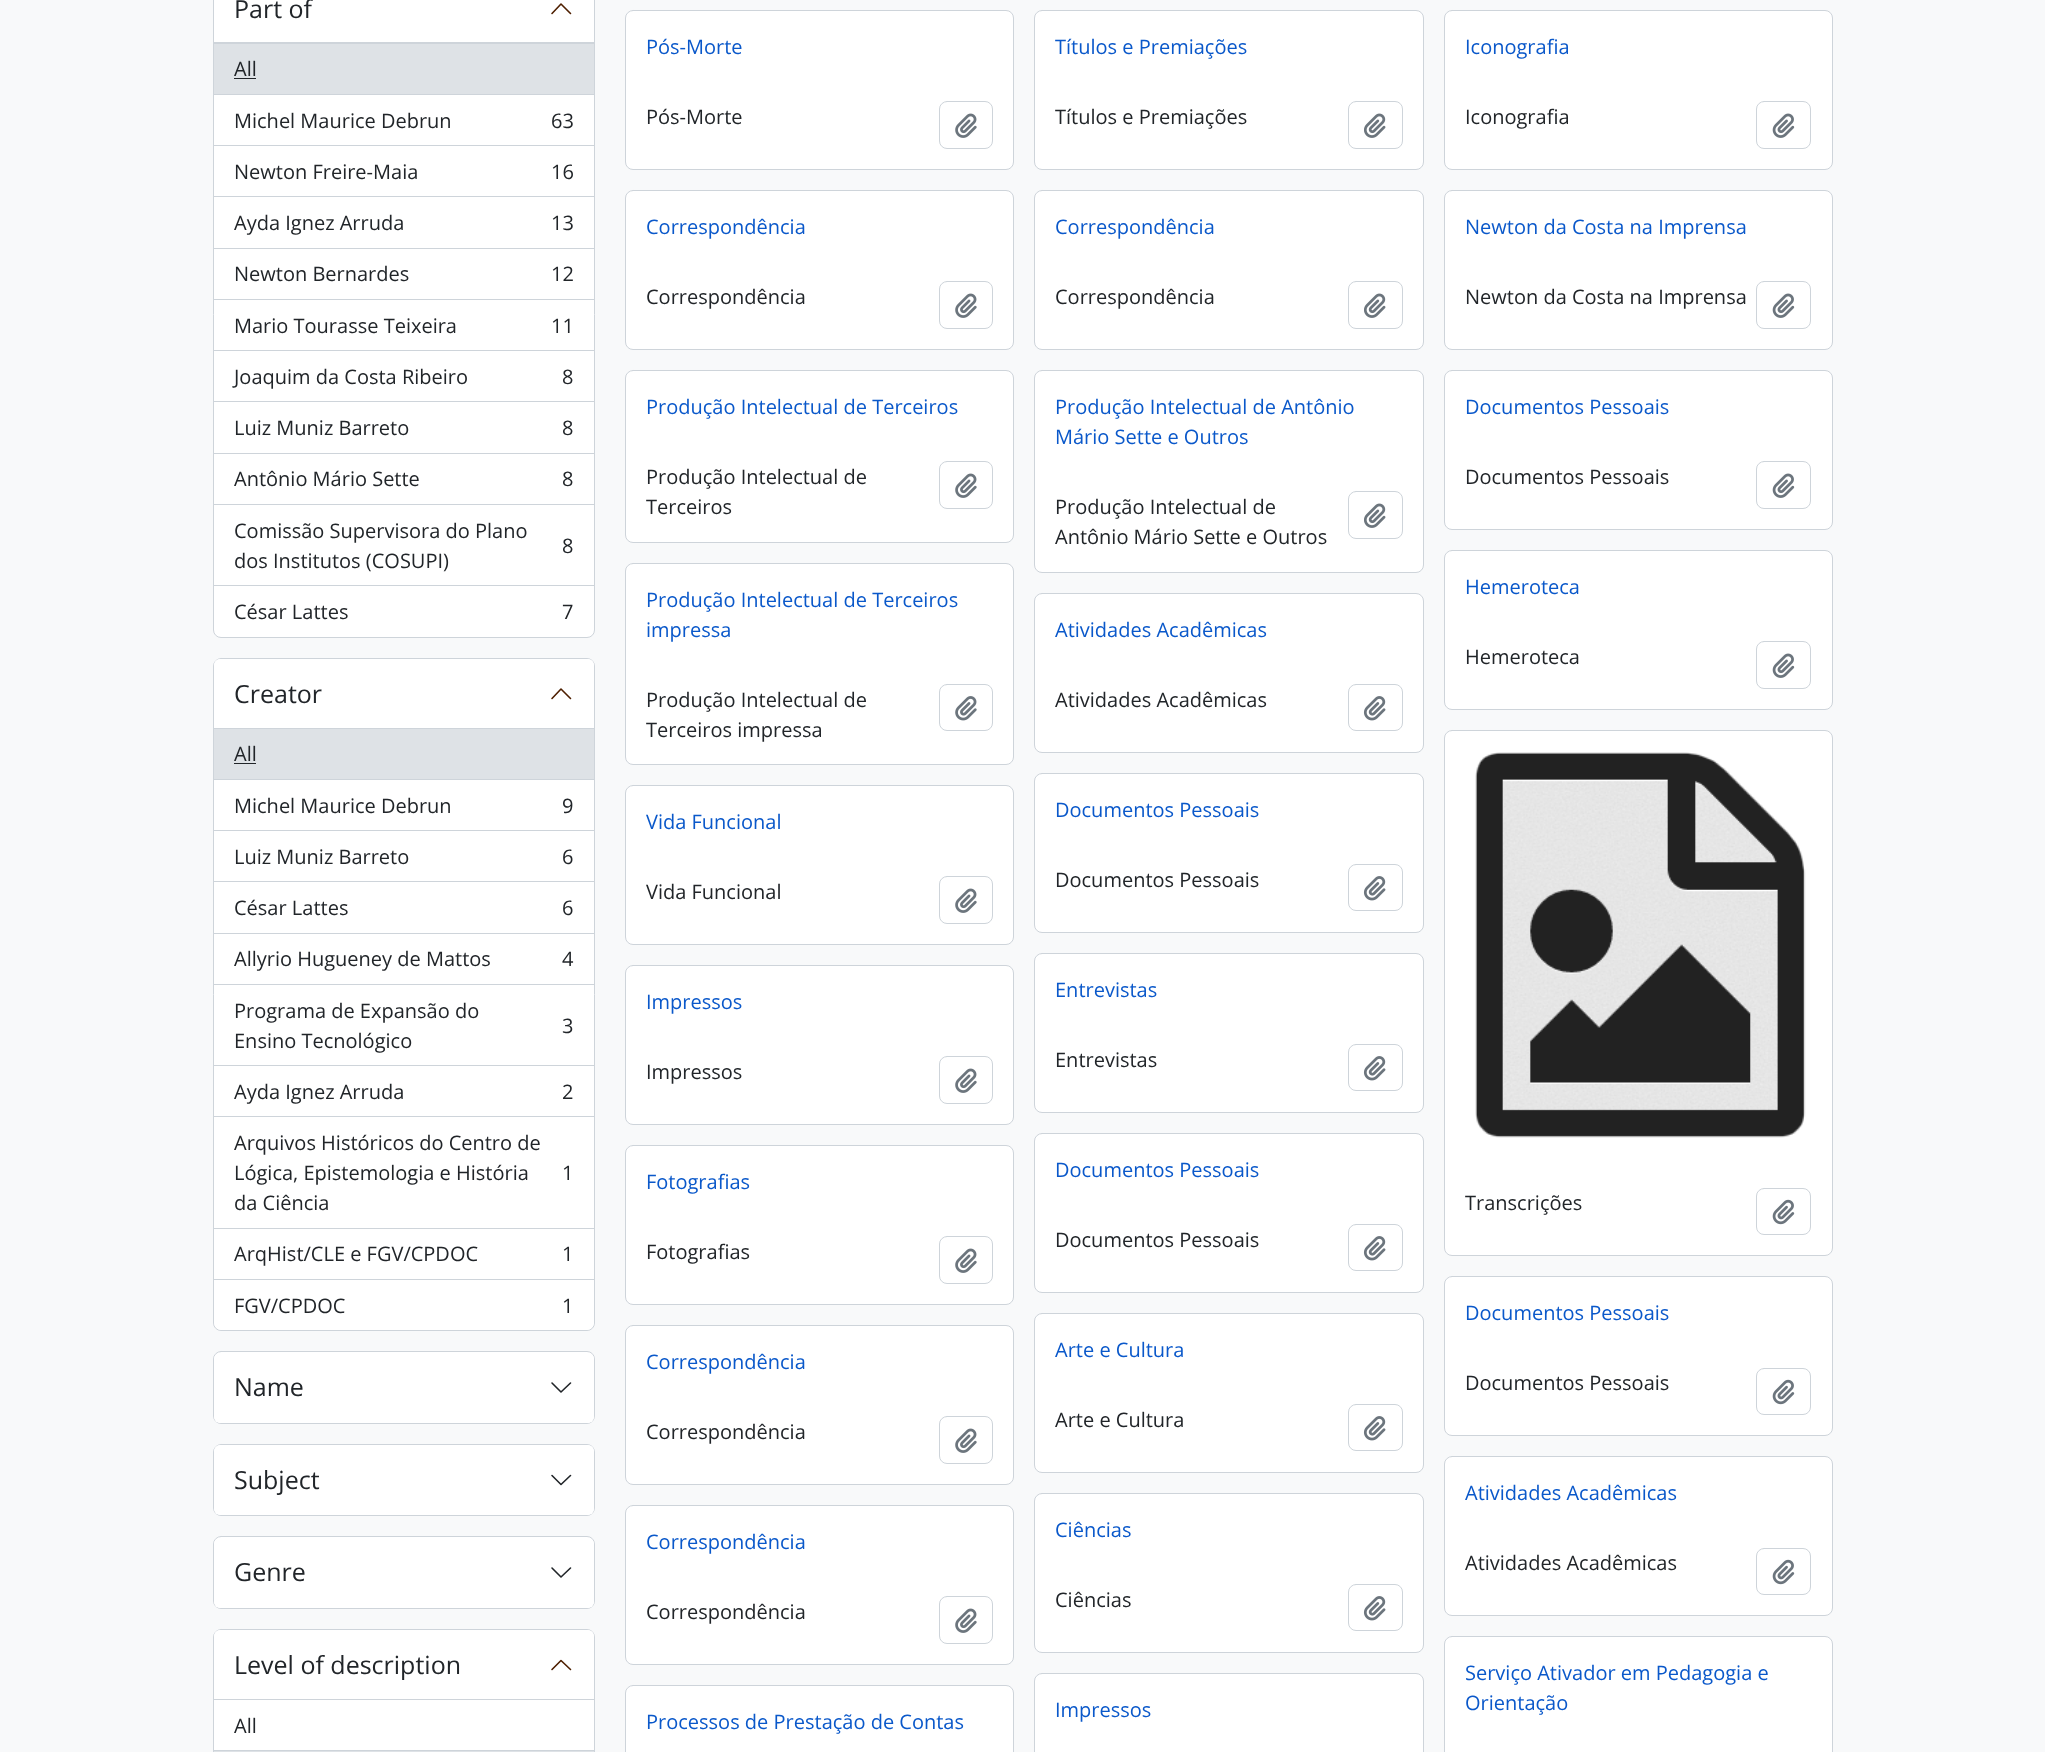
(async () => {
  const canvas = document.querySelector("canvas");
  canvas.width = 2045;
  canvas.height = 1752;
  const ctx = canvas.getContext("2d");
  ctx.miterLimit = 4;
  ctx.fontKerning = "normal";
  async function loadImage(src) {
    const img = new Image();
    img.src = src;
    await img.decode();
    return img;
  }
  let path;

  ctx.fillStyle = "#f8f9fa";
  ctx.fillRect(0, 0, 2045, 1752);
  ctx.fillStyle = "#ffffff";
  ctx.beginPath();
  ctx.roundRect(213.5, -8.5, 381, 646, 7.5);
  ctx.fill();
  ctx.strokeStyle = "#ced4da";
  ctx.stroke();
  ctx.fillStyle = "#ced4da";
  ctx.fillRect(214, 42, 380, 2);
  path = new Path2D("M570.5 13.5L561 4L552 13.5");
  ctx.strokeStyle = "#4e1f00";
  ctx.lineWidth = 1.6;
  ctx.lineCap = "round";
  ctx.lineJoin = "round";
  ctx.stroke(path);
  for (const [x, y, w, h, color] of [
    [214, 44, 380, 50, "#dee2e6"],
    [214, 94, 380, 1, "#ced4da"],
    [234, 78, 22, 1, "#212529"],
    [214, 145, 380, 1, "#ced4da"],
    [214, 196, 380, 1, "#ced4da"],
    [214, 248, 380, 1, "#ced4da"],
    [214, 299, 380, 1, "#ced4da"],
    [214, 350, 380, 1, "#ced4da"],
    [214, 401, 380, 1, "#ced4da"],
    [214, 453, 380, 1, "#ced4da"],
    [214, 504, 380, 1, "#ced4da"],
    [214, 585, 380, 1, "#ced4da"],
  ]) {
    ctx.fillStyle = color;
    ctx.fillRect(x, y, w, h);
  }
  ctx.fillStyle = "#ffffff";
  ctx.beginPath();
  ctx.roundRect(213.5, 658.5, 381, 672, 7.5);
  ctx.fill();
  ctx.strokeStyle = "#ced4da";
  ctx.lineWidth = 1;
  ctx.lineJoin = "miter";
  ctx.stroke();
  ctx.beginPath();
  ctx.roundRect(214, 659, 380, 70, [6, 6, 0, 0]);
  ctx.fill();
  ctx.fillStyle = "#ced4da";
  ctx.fillRect(214, 728, 380, 1);
  path = new Path2D("M570.5 698.5L561 689L552 698.5");
  ctx.strokeStyle = "#4e1f00";
  ctx.lineWidth = 1.6;
  ctx.lineJoin = "round";
  ctx.stroke(path);
  for (const [x, y, w, h, color] of [
    [214, 729, 380, 50, "#dee2e6"],
    [214, 779, 380, 1, "#ced4da"],
    [234, 763, 22, 1, "#212529"],
    [214, 830, 380, 1, "#ced4da"],
    [214, 881, 380, 1, "#ced4da"],
    [214, 933, 380, 1, "#ced4da"],
    [214, 984, 380, 1, "#ced4da"],
    [214, 1065, 380, 1, "#ced4da"],
    [214, 1116, 380, 1, "#ced4da"],
    [214, 1228, 380, 1, "#ced4da"],
    [214, 1279, 380, 1, "#ced4da"],
  ]) {
    ctx.fillStyle = color;
    ctx.fillRect(x, y, w, h);
  }
  ctx.fillStyle = "#ffffff";
  ctx.beginPath();
  ctx.roundRect(214, 1280, 380, 50, [0, 0, 8, 8]);
  ctx.fill();
  ctx.beginPath();
  ctx.roundRect(213.5, 1351.5, 381, 72, 7.5);
  ctx.fill();
  ctx.strokeStyle = "#ced4da";
  ctx.lineWidth = 1;
  ctx.lineJoin = "miter";
  ctx.stroke();
  ctx.beginPath();
  ctx.roundRect(214, 1353, 380, 70, 6);
  ctx.fill();
  path = new Path2D("M552 1383L561 1392L570.5 1383");
  ctx.strokeStyle = "#212529";
  ctx.lineWidth = 1.6;
  ctx.lineJoin = "round";
  ctx.stroke(path);
  ctx.beginPath();
  ctx.roundRect(213.5, 1444.5, 381, 71, 7.5);
  ctx.strokeStyle = "#ced4da";
  ctx.lineWidth = 1;
  ctx.lineJoin = "miter";
  ctx.stroke();
  ctx.beginPath();
  ctx.roundRect(214, 1445, 380, 70, 6);
  ctx.fill();
  path = new Path2D("M552 1475.5L561 1484.5L570.5 1475.5");
  ctx.strokeStyle = "#212529";
  ctx.lineWidth = 1.6;
  ctx.lineJoin = "round";
  ctx.stroke(path);
  ctx.beginPath();
  ctx.roundRect(213.5, 1536.5, 381, 72, 7.5);
  ctx.fill();
  ctx.strokeStyle = "#ced4da";
  ctx.lineWidth = 1;
  ctx.lineJoin = "miter";
  ctx.stroke();
  ctx.beginPath();
  ctx.roundRect(214, 1538, 380, 70, 6);
  ctx.fill();
  path = new Path2D("M552 1568L561 1577L570.5 1568");
  ctx.strokeStyle = "#212529";
  ctx.lineWidth = 1.6;
  ctx.lineJoin = "round";
  ctx.stroke(path);
  ctx.beginPath();
  ctx.roundRect(213.5, 1629.5, 381, 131, 7.5);
  ctx.fill();
  ctx.strokeStyle = "#ced4da";
  ctx.lineWidth = 1;
  ctx.lineJoin = "miter";
  ctx.stroke();
  ctx.beginPath();
  ctx.roundRect(214, 1630, 380, 70, [6, 6, 0, 0]);
  ctx.fill();
  ctx.fillStyle = "#ced4da";
  ctx.fillRect(214, 1699, 380, 1);
  path = new Path2D("M570.5 1669.5L561 1660.5L552 1669.5");
  ctx.strokeStyle = "#4e1f00";
  ctx.lineWidth = 1.6;
  ctx.lineJoin = "round";
  ctx.stroke(path);
  ctx.fillRect(214, 1750, 380, 1);
  ctx.fillStyle = "#dee2e6";
  ctx.fillRect(214, 1751, 380, 1);
  ctx.fillStyle = "#ffffff";
  ctx.beginPath();
  ctx.roundRect(625.5, 10.5, 388, 159, 7.5);
  ctx.fill();
  ctx.strokeStyle = "#ced4da";
  ctx.lineWidth = 1;
  ctx.lineJoin = "miter";
  ctx.stroke();
  ctx.beginPath();
  ctx.roundRect(939.5, 101.5, 53, 47, 7.5);
  ctx.stroke();
  ctx.drawImage(await loadImage("img/1.png"), 955, 113, 22, 25);
  ctx.beginPath();
  ctx.roundRect(1034.5, 10.5, 389, 159, 7.5);
  ctx.fill();
  ctx.stroke();
  ctx.beginPath();
  ctx.roundRect(1348.5, 101.5, 54, 47, 7.5);
  ctx.stroke();
  ctx.drawImage(await loadImage("img/2.png"), 1364, 113, 22, 25);
  ctx.beginPath();
  ctx.roundRect(1444.5, 10.5, 388, 159, 7.5);
  ctx.fill();
  ctx.stroke();
  ctx.beginPath();
  ctx.roundRect(1756.5, 101.5, 54, 47, 7.5);
  ctx.stroke();
  ctx.drawImage(await loadImage("img/3.png"), 1772, 113, 23, 25);
  ctx.beginPath();
  ctx.roundRect(625.5, 190.5, 388, 159, 7.5);
  ctx.fill();
  ctx.stroke();
  ctx.beginPath();
  ctx.roundRect(939.5, 281.5, 53, 47, 7.5);
  ctx.stroke();
  ctx.drawImage(await loadImage("img/1.png"), 955, 293, 22, 25);
  ctx.beginPath();
  ctx.roundRect(1034.5, 190.5, 389, 159, 7.5);
  ctx.fill();
  ctx.stroke();
  ctx.beginPath();
  ctx.roundRect(1348.5, 281.5, 54, 47, 7.5);
  ctx.stroke();
  ctx.drawImage(await loadImage("img/2.png"), 1364, 293, 22, 25);
  ctx.beginPath();
  ctx.roundRect(1444.5, 190.5, 388, 159, 7.5);
  ctx.fill();
  ctx.stroke();
  ctx.beginPath();
  ctx.roundRect(1756.5, 281.5, 54, 47, 7.5);
  ctx.stroke();
  ctx.drawImage(await loadImage("img/3.png"), 1772, 293, 23, 25);
  ctx.beginPath();
  ctx.roundRect(625.5, 370.5, 388, 172, 7.5);
  ctx.fill();
  ctx.stroke();
  ctx.beginPath();
  ctx.roundRect(939.5, 461.5, 53, 47, 7.5);
  ctx.stroke();
  ctx.drawImage(await loadImage("img/1.png"), 955, 473, 22, 25);
  ctx.beginPath();
  ctx.roundRect(1034.5, 370.5, 389, 202, 7.5);
  ctx.fill();
  ctx.stroke();
  ctx.beginPath();
  ctx.roundRect(1348.5, 491.5, 54, 47, 7.5);
  ctx.stroke();
  ctx.drawImage(await loadImage("img/2.png"), 1364, 503, 22, 25);
  ctx.beginPath();
  ctx.roundRect(1444.5, 370.5, 388, 159, 7.5);
  ctx.fill();
  ctx.stroke();
  ctx.beginPath();
  ctx.roundRect(1756.5, 461.5, 54, 47, 7.5);
  ctx.stroke();
  ctx.drawImage(await loadImage("img/3.png"), 1772, 473, 23, 25);
  ctx.beginPath();
  ctx.roundRect(625.5, 563.5, 388, 201, 7.5);
  ctx.fill();
  ctx.stroke();
  ctx.beginPath();
  ctx.roundRect(939.5, 684.5, 53, 46, 7.5);
  ctx.stroke();
  ctx.drawImage(await loadImage("img/4.png"), 955, 696, 22, 25);
  ctx.beginPath();
  ctx.roundRect(1034.5, 593.5, 389, 159, 7.5);
  ctx.fill();
  ctx.stroke();
  ctx.beginPath();
  ctx.roundRect(1348.5, 684.5, 54, 46, 7.5);
  ctx.stroke();
  ctx.drawImage(await loadImage("img/5.png"), 1363, 696, 23, 25);
  ctx.beginPath();
  ctx.roundRect(1444.5, 550.5, 388, 159, 7.5);
  ctx.fill();
  ctx.stroke();
  ctx.beginPath();
  ctx.roundRect(1756.5, 641.5, 54, 47, 7.5);
  ctx.stroke();
  ctx.drawImage(await loadImage("img/3.png"), 1772, 653, 23, 25);
  ctx.beginPath();
  ctx.roundRect(625.5, 785.5, 388, 159, 7.5);
  ctx.fill();
  ctx.stroke();
  ctx.beginPath();
  ctx.roundRect(939.5, 876.5, 53, 47, 7.5);
  ctx.stroke();
  ctx.drawImage(await loadImage("img/1.png"), 955, 888, 22, 25);
  ctx.beginPath();
  ctx.roundRect(1034.5, 773.5, 389, 159, 7.5);
  ctx.fill();
  ctx.stroke();
  ctx.beginPath();
  ctx.roundRect(1348.5, 864.5, 54, 46, 7.5);
  ctx.stroke();
  ctx.drawImage(await loadImage("img/5.png"), 1363, 876, 23, 25);
  ctx.beginPath();
  ctx.roundRect(625.5, 965.5, 388, 159, 7.5);
  ctx.fill();
  ctx.stroke();
  ctx.beginPath();
  ctx.roundRect(939.5, 1056.5, 53, 47, 7.5);
  ctx.stroke();
  ctx.drawImage(await loadImage("img/1.png"), 955, 1068, 22, 25);
  ctx.beginPath();
  ctx.roundRect(1034.5, 953.5, 389, 159, 7.5);
  ctx.fill();
  ctx.stroke();
  ctx.beginPath();
  ctx.roundRect(1348.5, 1044.5, 54, 46, 7.5);
  ctx.stroke();
  ctx.drawImage(await loadImage("img/5.png"), 1363, 1056, 23, 25);
  ctx.beginPath();
  ctx.roundRect(625.5, 1145.5, 388, 159, 7.5);
  ctx.fill();
  ctx.stroke();
  ctx.beginPath();
  ctx.roundRect(939.5, 1236.5, 53, 47, 7.5);
  ctx.stroke();
  ctx.drawImage(await loadImage("img/1.png"), 955, 1248, 22, 25);
  ctx.beginPath();
  ctx.roundRect(1034.5, 1133.5, 389, 159, 7.5);
  ctx.fill();
  ctx.stroke();
  ctx.beginPath();
  ctx.roundRect(1348.5, 1224.5, 54, 46, 7.5);
  ctx.stroke();
  ctx.drawImage(await loadImage("img/5.png"), 1363, 1236, 23, 25);
  ctx.beginPath();
  ctx.roundRect(1444.5, 730.5, 388, 525, 7.5);
  ctx.fill();
  ctx.stroke();
  ctx.drawImage(await loadImage("img/6.png"), 1475, 752, 331, 386);
  ctx.beginPath();
  ctx.roundRect(1756.5, 1188.5, 54, 46, 7.5);
  ctx.stroke();
  ctx.drawImage(await loadImage("img/7.png"), 1772, 1199, 23, 26);
  ctx.beginPath();
  ctx.roundRect(625.5, 1325.5, 388, 159, 7.5);
  ctx.fill();
  ctx.stroke();
  ctx.beginPath();
  ctx.roundRect(939.5, 1416.5, 53, 47, 7.5);
  ctx.stroke();
  ctx.drawImage(await loadImage("img/1.png"), 955, 1428, 22, 25);
  ctx.beginPath();
  ctx.roundRect(1034.5, 1313.5, 389, 159, 7.5);
  ctx.fill();
  ctx.stroke();
  ctx.beginPath();
  ctx.roundRect(1348.5, 1404.5, 54, 46, 7.5);
  ctx.stroke();
  ctx.drawImage(await loadImage("img/5.png"), 1363, 1416, 23, 25);
  ctx.beginPath();
  ctx.roundRect(1444.5, 1276.5, 388, 159, 7.5);
  ctx.fill();
  ctx.stroke();
  ctx.beginPath();
  ctx.roundRect(1756.5, 1368.5, 54, 46, 7.5);
  ctx.stroke();
  ctx.drawImage(await loadImage("img/7.png"), 1772, 1379, 23, 26);
  ctx.beginPath();
  ctx.roundRect(625.5, 1505.5, 388, 159, 7.5);
  ctx.fill();
  ctx.stroke();
  ctx.beginPath();
  ctx.roundRect(939.5, 1596.5, 53, 47, 7.5);
  ctx.stroke();
  ctx.drawImage(await loadImage("img/1.png"), 955, 1608, 22, 25);
  ctx.beginPath();
  ctx.roundRect(1034.5, 1493.5, 389, 159, 7.5);
  ctx.fill();
  ctx.stroke();
  ctx.beginPath();
  ctx.roundRect(1348.5, 1584.5, 54, 46, 7.5);
  ctx.stroke();
  ctx.drawImage(await loadImage("img/5.png"), 1363, 1596, 23, 25);
  ctx.beginPath();
  ctx.roundRect(1444.5, 1456.5, 388, 159, 7.5);
  ctx.fill();
  ctx.stroke();
  ctx.beginPath();
  ctx.roundRect(1756.5, 1548.5, 54, 46, 7.5);
  ctx.stroke();
  ctx.drawImage(await loadImage("img/7.png"), 1772, 1559, 23, 26);
  ctx.beginPath();
  ctx.roundRect(625.5, 1685.5, 388, 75, 7.5);
  ctx.fill();
  ctx.stroke();
  ctx.beginPath();
  ctx.roundRect(1034.5, 1673.5, 389, 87, 7.5);
  ctx.fill();
  ctx.stroke();
  ctx.beginPath();
  ctx.roundRect(1444.5, 1636.5, 388, 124, 7.5);
  ctx.fill();
  ctx.stroke();
  ctx.font = "25px Open Sans";
  ctx.fillStyle = "#212529";
  ctx.fillText("Part of", 234, 18);
  ctx.font = "20px Open Sans";
  for (const [text, x, y] of [
    ["All", 234, 76],
    ["Michel Maurice Debrun", 234, 128],
    ["63", 551, 128],
    ["Newton Freire-Maia", 234, 179],
    ["16", 551, 179],
    ["Ayda Ignez Arruda", 234, 230],
    ["13", 551, 230],
    ["Newton Bernardes", 234, 281],
    ["12", 551, 281],
    ["Mario Tourasse Teixeira", 234, 333],
    ["11", 551, 333],
    ["Joaquim da Costa Ribeiro", 234, 384],
    ["8", 562, 384],
    ["Luiz Muniz Barreto", 234, 435],
    ["8", 562, 435],
    ["Antônio Mário Sette", 234, 486],
    ["8", 562, 486],
    ["Comissão Supervisora do Plano", 234, 538],
    ["8", 562, 553],
    ["dos Institutos (COSUPI)", 234, 568],
    ["César Lattes", 234, 619],
    ["7", 562, 619],
  ]) {
    ctx.fillText(text, x, y);
  }
  ctx.font = "25px Open Sans";
  ctx.fillText("Creator", 234, 703);
  ctx.font = "20px Open Sans";
  for (const [text, x, y] of [
    ["All", 234, 761],
    ["Michel Maurice Debrun", 234, 813],
    ["9", 562, 813],
    ["Luiz Muniz Barreto", 234, 864],
    ["6", 562, 864],
    ["César Lattes", 234, 915],
    ["6", 562, 915],
    ["Allyrio Hugueney de Mattos", 234, 966],
    ["4", 562, 966],
    ["Programa de Expansão do", 234, 1018],
    ["3", 562, 1033],
    ["Ensino Tecnológico", 234, 1048],
    ["Ayda Ignez Arruda", 234, 1099],
    ["2", 562, 1099],
    ["Arquivos Históricos do Centro de", 234, 1150],
    ["Lógica, Epistemologia e História", 234, 1180],
    ["1", 562, 1180],
    ["da Ciência", 234, 1210],
    ["ArqHist/CLE e FGV/CPDOC", 234, 1261],
    ["1", 562, 1261],
    ["FGV/CPDOC", 234, 1313],
    ["1", 562, 1313],
  ]) {
    ctx.fillText(text, x, y);
  }
  ctx.font = "25px Open Sans";
  for (const [text, x, y] of [
    ["Name", 234, 1396],
    ["Subject", 234, 1489],
    ["Genre", 234, 1581],
    ["Level of description", 234, 1674],
  ]) {
    ctx.fillText(text, x, y);
  }
  ctx.font = "20px Open Sans";
  ctx.fillText("All", 234, 1733);
  ctx.fillStyle = "#0a58ca";
  ctx.fillText("Pós-Morte", 646, 54);
  ctx.fillStyle = "#212529";
  ctx.fillText("Pós-Morte", 646, 124);
  ctx.fillStyle = "#0a58ca";
  ctx.fillText("Títulos e Premiações", 1055, 54);
  ctx.fillStyle = "#212529";
  ctx.fillText("Títulos e Premiações", 1055, 124);
  ctx.fillStyle = "#0a58ca";
  ctx.fillText("Iconografia", 1465, 54);
  ctx.fillStyle = "#212529";
  ctx.fillText("Iconografia", 1465, 124);
  ctx.fillStyle = "#0a58ca";
  ctx.fillText("Correspondência", 646, 234);
  ctx.fillStyle = "#212529";
  ctx.fillText("Correspondência", 646, 304);
  ctx.fillStyle = "#0a58ca";
  ctx.fillText("Correspondência", 1055, 234);
  ctx.fillStyle = "#212529";
  ctx.fillText("Correspondência", 1055, 304);
  ctx.fillStyle = "#0a58ca";
  ctx.fillText("Newton da Costa na Imprensa", 1465, 234);
  ctx.fillStyle = "#212529";
  ctx.fillText("Newton da Costa na Imprensa", 1465, 304);
  ctx.fillStyle = "#0a58ca";
  ctx.fillText("Produção Intelectual de Terceiros", 646, 414);
  ctx.fillStyle = "#212529";
  ctx.fillText("Produção Intelectual de", 646, 484);
  ctx.fillText("Terceiros", 646, 514);
  ctx.fillStyle = "#0a58ca";
  ctx.fillText("Produção Intelectual de Antônio", 1055, 414);
  ctx.fillText("Mário Sette e Outros", 1055, 444);
  ctx.fillStyle = "#212529";
  ctx.fillText("Produção Intelectual de", 1055, 514);
  ctx.fillText("Antônio Mário Sette e Outros", 1055, 544);
  ctx.fillStyle = "#0a58ca";
  ctx.fillText("Documentos Pessoais", 1465, 414);
  ctx.fillStyle = "#212529";
  ctx.fillText("Documentos Pessoais", 1465, 484);
  ctx.fillStyle = "#0a58ca";
  ctx.fillText("Produção Intelectual de Terceiros", 646, 607);
  ctx.fillText("impressa", 646, 637);
  ctx.fillStyle = "#212529";
  ctx.fillText("Produção Intelectual de", 646, 707);
  ctx.fillText("Terceiros impressa", 646, 737);
  ctx.fillStyle = "#0a58ca";
  ctx.fillText("Atividades Acadêmicas", 1055, 637);
  ctx.fillStyle = "#212529";
  ctx.fillText("Atividades Acadêmicas", 1055, 707);
  ctx.fillStyle = "#0a58ca";
  ctx.fillText("Hemeroteca", 1465, 594);
  ctx.fillStyle = "#212529";
  ctx.fillText("Hemeroteca", 1465, 664);
  ctx.fillStyle = "#0a58ca";
  ctx.fillText("Vida Funcional", 646, 829);
  ctx.fillStyle = "#212529";
  ctx.fillText("Vida Funcional", 646, 899);
  ctx.fillStyle = "#0a58ca";
  ctx.fillText("Documentos Pessoais", 1055, 817);
  ctx.fillStyle = "#212529";
  ctx.fillText("Documentos Pessoais", 1055, 887);
  ctx.fillStyle = "#0a58ca";
  ctx.fillText("Impressos", 646, 1009);
  ctx.fillStyle = "#212529";
  ctx.fillText("Impressos", 646, 1079);
  ctx.fillStyle = "#0a58ca";
  ctx.fillText("Entrevistas", 1055, 997);
  ctx.fillStyle = "#212529";
  ctx.fillText("Entrevistas", 1055, 1067);
  ctx.fillStyle = "#0a58ca";
  ctx.fillText("Fotografias", 646, 1189);
  ctx.fillStyle = "#212529";
  ctx.fillText("Fotografias", 646, 1259);
  ctx.fillStyle = "#0a58ca";
  ctx.fillText("Documentos Pessoais", 1055, 1177);
  ctx.fillStyle = "#212529";
  ctx.fillText("Documentos Pessoais", 1055, 1247);
  ctx.fillText("Transcrições", 1465, 1210);
  ctx.fillStyle = "#0a58ca";
  ctx.fillText("Correspondência", 646, 1369);
  ctx.fillStyle = "#212529";
  ctx.fillText("Correspondência", 646, 1439);
  ctx.fillStyle = "#0a58ca";
  ctx.fillText("Arte e Cultura", 1055, 1357);
  ctx.fillStyle = "#212529";
  ctx.fillText("Arte e Cultura", 1055, 1427);
  ctx.fillStyle = "#0a58ca";
  ctx.fillText("Documentos Pessoais", 1465, 1320);
  ctx.fillStyle = "#212529";
  ctx.fillText("Documentos Pessoais", 1465, 1390);
  ctx.fillStyle = "#0a58ca";
  ctx.fillText("Correspondência", 646, 1549);
  ctx.fillStyle = "#212529";
  ctx.fillText("Correspondência", 646, 1619);
  ctx.fillStyle = "#0a58ca";
  ctx.fillText("Ciências", 1055, 1537);
  ctx.fillStyle = "#212529";
  ctx.fillText("Ciências", 1055, 1607);
  ctx.fillStyle = "#0a58ca";
  ctx.fillText("Atividades Acadêmicas", 1465, 1500);
  ctx.fillStyle = "#212529";
  ctx.fillText("Atividades Acadêmicas", 1465, 1570);
  ctx.fillStyle = "#0a58ca";
  for (const [text, x, y] of [
    ["Processos de Prestação de Contas", 646, 1729],
    ["Impressos", 1055, 1717],
    ["Serviço Ativador em Pedagogia e", 1465, 1680],
    ["Orientação", 1465, 1710],
  ]) {
    ctx.fillText(text, x, y);
  }
})();
